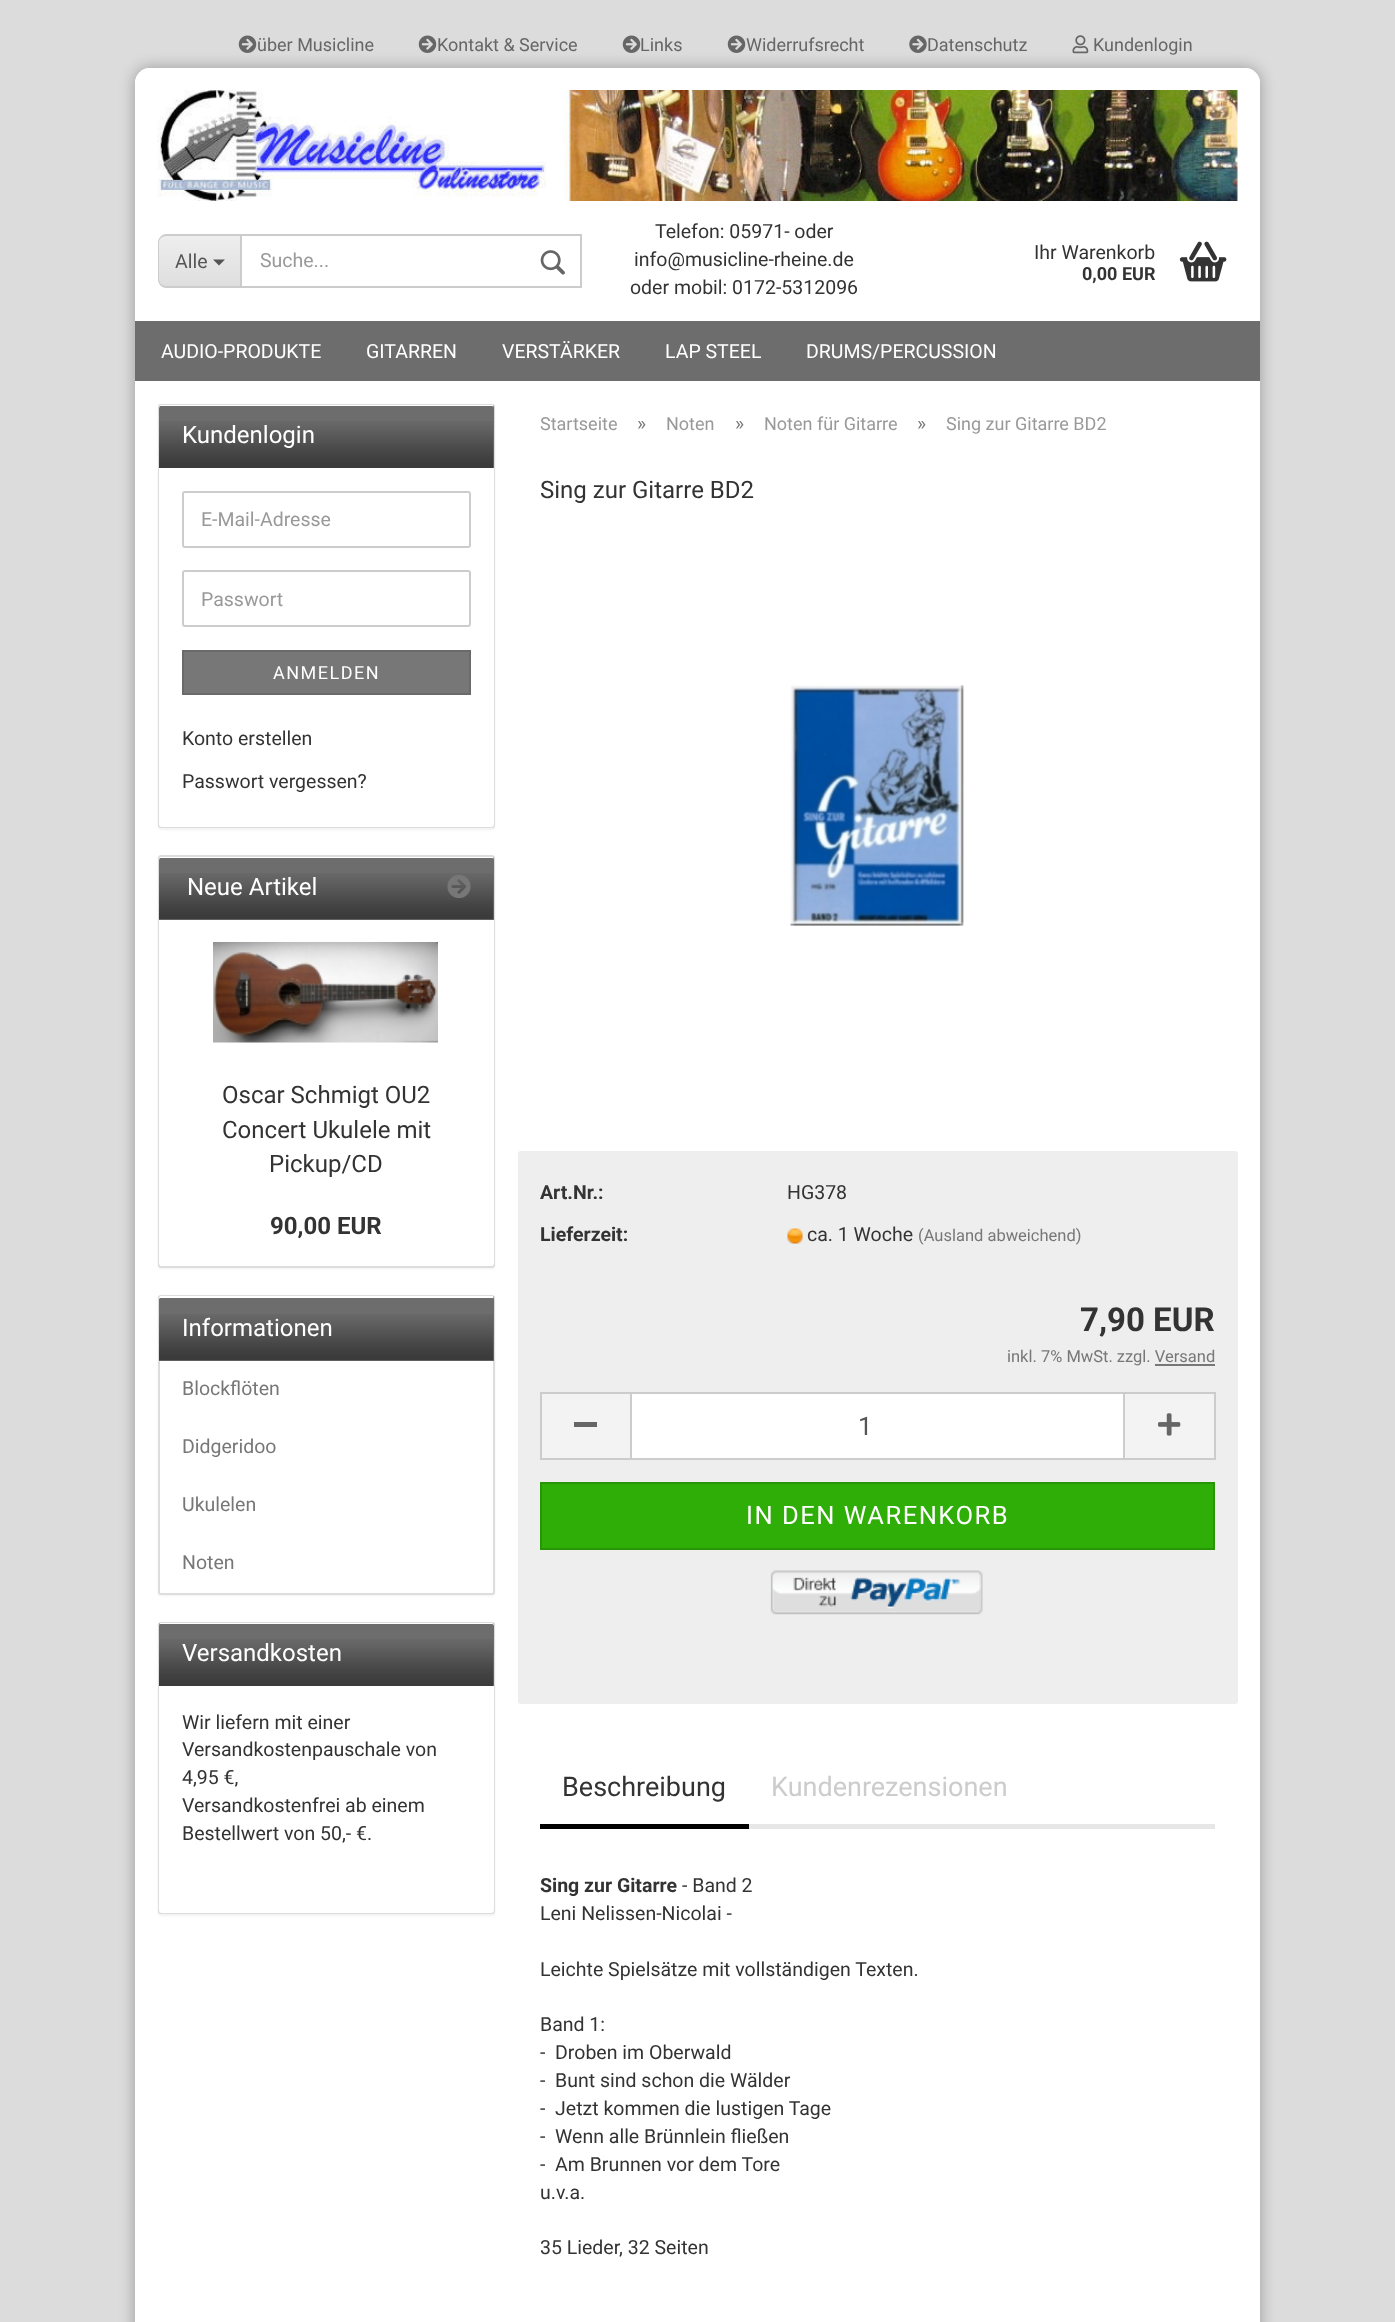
(async () => {
  const canvas = document.querySelector("canvas");
  canvas.width = 1395;
  canvas.height = 2322;
  const ctx = canvas.getContext("2d");
  ctx.miterLimit = 4;
  ctx.fontKerning = "normal";
  async function loadImage(src) {
    const img = new Image();
    img.src = src;
    await img.decode();
    return img;
  }
  let gradient, path;

  ctx.fillStyle = "#dcdcdc";
  ctx.fillRect(0, 0, 1395, 2322);
  ctx.fillStyle = "rgba(0, 0, 0, 0.3)";
  ctx.filter = "blur(7.5px)";
  ctx.beginPath();
  ctx.roundRect(135, 68, 1125, 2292, 15);
  ctx.fill();
  ctx.filter = "none";
  ctx.fillStyle = "#ffffff";
  ctx.beginPath();
  ctx.roundRect(135, 68, 1125, 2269, 15);
  ctx.fill();
  ctx.beginPath();
  ctx.roundRect(135, 68, 1125, 313, [15, 15, 3, 3]);
  ctx.fill();
  ctx.drawImage(await loadImage("img/1.png"), 238, 35, 19, 18);
  ctx.drawImage(await loadImage("img/1.png"), 418, 35, 19, 18);
  ctx.drawImage(await loadImage("img/1.png"), 622, 35, 19, 18);
  ctx.drawImage(await loadImage("img/1.png"), 727, 35, 19, 18);
  ctx.drawImage(await loadImage("img/2.png"), 909, 35, 18, 18);
  ctx.drawImage(await loadImage("img/3.png"), 1072, 35, 17, 19);
  ctx.drawImage(await loadImage("img/4.png"), 157, 90, 1081, 111);
  ctx.save();
  ctx.beginPath();
  ctx.roundRect(158, 234, 82, 54, [9, 0, 0, 9]);
  ctx.clip();
  gradient = ctx.createLinearGradient(200, 236, 200, 287);
  gradient.addColorStop(0, "#eeeeee");
  gradient.addColorStop(1, "#dedede");
  ctx.fillStyle = gradient;
  ctx.fillRect(158, 236, 82, 51);
  ctx.restore();
  ctx.fillStyle = "#cccccc";
  path = new Path2D("M166 234H240V288H166C162 288 158 284 158 279V243C158 238 162 234 166 234ZM166 236H240V286H166C162 286 159 283 159 279V243C159 239 162 236 166 236Z");
  ctx.fill(path, "evenodd");
  ctx.fillStyle = "#555555";
  path = new Path2D("M213 259.5H225L219 265.5Z");
  ctx.fill(path);
  ctx.strokeStyle = "#cccccc";
  ctx.lineWidth = 2;
  ctx.strokeRect(241, 235, 340, 52);
  ctx.drawImage(await loadImage("img/5.png"), 540, 250, 25, 25);
  ctx.drawImage(await loadImage("img/6.png"), 1179, 241, 48, 41);
  ctx.fillStyle = "#6d6d6d";
  ctx.fillRect(135, 321, 1125, 60);
  ctx.fillStyle = "rgba(0, 0, 0, 0.05)";
  ctx.filter = "blur(1px)";
  ctx.beginPath();
  ctx.roundRect(158, 405, 337, 425, 3);
  ctx.fill();
  ctx.filter = "none";
  ctx.beginPath();
  ctx.roundRect(159, 405, 335, 422, 2);
  ctx.strokeStyle = "#dddddd";
  ctx.stroke();
  ctx.fillStyle = "#6d6d6d";
  ctx.beginPath();
  ctx.roundRect(159, 405, 335, 63, [1.5, 1.5, 0, 0]);
  ctx.fill();
  ctx.drawImage(await loadImage("img/7.png"), 159, 421, 335, 47);
  ctx.fillStyle = "#ffffff";
  path = new Path2D("M160 406H492C493 406 494 407 494 408L493 405H160C159 405 159 407 159 408Z");
  ctx.fill(path);
  ctx.beginPath();
  ctx.roundRect(159, 468, 335, 359, [0, 0, 3, 3]);
  ctx.fill();
  ctx.beginPath();
  ctx.roundRect(183, 492, 287, 55, 2);
  ctx.strokeStyle = "#cccccc";
  ctx.stroke();
  ctx.beginPath();
  ctx.roundRect(183, 571, 287, 55, 2);
  ctx.stroke();
  ctx.fillStyle = "#777777";
  ctx.beginPath();
  ctx.rect(183, 651, 287, 43);
  ctx.fill();
  ctx.strokeStyle = "#6a6a6a";
  ctx.stroke();
  ctx.fillStyle = "rgba(0, 0, 0, 0.05)";
  ctx.filter = "blur(1px)";
  ctx.beginPath();
  ctx.roundRect(158, 857, 337, 412, 3);
  ctx.fill();
  ctx.filter = "none";
  ctx.fillStyle = "#ffffff";
  ctx.beginPath();
  ctx.roundRect(159, 856, 335, 411, 2);
  ctx.fill();
  ctx.strokeStyle = "#dddddd";
  ctx.stroke();
  ctx.fillStyle = "#6d6d6d";
  ctx.beginPath();
  ctx.roundRect(159, 857, 335, 63, [1.5, 1.5, 0, 0]);
  ctx.fill();
  ctx.drawImage(await loadImage("img/8.png"), 159, 873, 335, 47);
  ctx.fillStyle = "#ffffff";
  path = new Path2D("M160 858H492C493 858 494 859 494 860L493 857H160C159 857 159 859 159 860Z");
  ctx.fill(path);
  ctx.drawImage(await loadImage("img/9.png"), 447, 875, 24, 23);
  ctx.beginPath();
  ctx.roundRect(159, 920, 335, 346, [0, 0, 3, 3]);
  ctx.fill();
  ctx.drawImage(await loadImage("img/10.png"), 213, 942, 225, 101);
  ctx.fillStyle = "rgba(0, 0, 0, 0.05)";
  ctx.filter = "blur(1px)";
  ctx.beginPath();
  ctx.roundRect(158, 1296, 337, 300, 3);
  ctx.fill();
  ctx.filter = "none";
  ctx.fillStyle = "#ffffff";
  ctx.beginPath();
  ctx.roundRect(159, 1296, 335, 298, 2);
  ctx.fill();
  ctx.stroke();
  ctx.fillStyle = "#6d6d6d";
  ctx.beginPath();
  ctx.roundRect(159, 1296, 335, 65, [1.5, 1.5, 0, 0]);
  ctx.fill();
  ctx.drawImage(await loadImage("img/8.png"), 159, 1314, 335, 47);
  ctx.fillStyle = "#ffffff";
  path = new Path2D("M160 1298H492C493 1298 494 1298 494 1299L493 1296H160C159 1296 159 1298 159 1299Z");
  ctx.fill(path);
  ctx.fillStyle = "rgba(0, 0, 0, 0.05)";
  ctx.filter = "blur(1px)";
  ctx.beginPath();
  ctx.roundRect(158, 1623, 337, 293, 3);
  ctx.fill();
  ctx.filter = "none";
  ctx.beginPath();
  ctx.roundRect(159, 1623, 335, 290, 2);
  ctx.stroke();
  ctx.fillStyle = "#6d6d6d";
  ctx.beginPath();
  ctx.roundRect(159, 1623, 335, 63, [1.5, 1.5, 0, 0]);
  ctx.fill();
  ctx.drawImage(await loadImage("img/7.png"), 159, 1639, 335, 47);
  ctx.fillStyle = "#ffffff";
  path = new Path2D("M160 1624H492C493 1624 494 1625 494 1626C494 1625 494 1623 492 1623H160L159 1626Z");
  ctx.fill(path);
  ctx.beginPath();
  ctx.roundRect(159, 1686, 335, 227, [0, 0, 3, 3]);
  ctx.fill();
  ctx.drawImage(await loadImage("img/11.png"), 790, 685, 174, 241);
  ctx.fillStyle = "#eeeeee";
  ctx.beginPath();
  ctx.roundRect(518, 1151, 720, 553, 3);
  ctx.fill();
  ctx.drawImage(await loadImage("img/12.png"), 787, 1228, 16, 16);
  for (const [x, y, w, h, color] of [
    [1155, 1364, 60, 2, "#777777"],
    [542, 1394, 88, 64, "#f3f3f3"],
    [540, 1392, 90, 2, "#cccccc"],
    [540, 1458, 90, 2, "#cccccc"],
    [540, 1392, 2, 68, "#cccccc"],
    [574, 1422, 23, 5, "#666666"],
  ]) {
    ctx.fillStyle = color;
    ctx.fillRect(x, y, w, h);
  }
  ctx.fillStyle = "#ffffff";
  ctx.beginPath();
  ctx.rect(631, 1393, 493, 66);
  ctx.fill();
  ctx.strokeStyle = "#cccccc";
  ctx.stroke();
  for (const [x, y, w, h, color] of [
    [1125, 1394, 89, 64, "#f3f3f3"],
    [1125, 1392, 90, 2, "#cccccc"],
    [1214, 1392, 2, 68, "#cccccc"],
    [1125, 1458, 90, 2, "#cccccc"],
  ]) {
    ctx.fillStyle = color;
    ctx.fillRect(x, y, w, h);
  }
  ctx.drawImage(await loadImage("img/13.png"), 1158, 1413, 23, 23);
  ctx.fillStyle = "#2eae06";
  ctx.beginPath();
  ctx.rect(541, 1483, 673, 66);
  ctx.fill();
  ctx.strokeStyle = "#279505";
  ctx.stroke();
  ctx.drawImage(await loadImage("img/14.png"), 770, 1570, 213, 45);
  ctx.fillStyle = "#e7e7e7";
  ctx.fillRect(749, 1824, 466, 5);
  ctx.fillStyle = "#000000";
  ctx.fillRect(540, 1824, 209, 5);
  ctx.font = "18px Roboto";
  ctx.fillStyle = "#666666";
  for (const [text, x, y] of [
    ["über Musicline", 257, 51],
    ["Kontakt & Service", 437, 51],
    ["Links", 640, 51],
    ["Widerrufsrecht", 746, 51],
    ["Datenschutz", 927, 51],
    ["Kundenlogin", 1093, 51],
  ]) {
    ctx.fillText(text, x, y);
  }
  ctx.font = "19.5px Roboto";
  ctx.fillStyle = "#555555";
  ctx.fillText("Alle", 175, 268);
  ctx.fillStyle = "#999999";
  ctx.fillText("Suche...", 260, 267);
  ctx.fillStyle = "#333333";
  for (const [text, x, y] of [
    ["Telefon: 05971- oder", 655, 238],
    ["info@musicline-rheine.de", 634, 266],
    ["oder mobil: 0172-5312096", 630, 294],
    ["Ihr Warenkorb", 1034, 259],
  ]) {
    ctx.fillText(text, x, y);
  }
  ctx.font = "bold 18px Roboto";
  ctx.fillText("0,00 EUR", 1082, 280);
  ctx.font = "19.5px Roboto";
  ctx.fillStyle = "#ffffff";
  for (const [text, x, y] of [
    ["AUDIO-PRODUKTE", 161, 358],
    ["GITARREN", 366, 358],
    ["VERSTÄRKER", 502, 358],
    ["LAP STEEL", 665, 358],
    ["DRUMS/PERCUSSION", 806, 358],
  ]) {
    ctx.fillText(text, x, y);
  }
  ctx.font = "24px Roboto";
  ctx.fillText("Kundenlogin", 182, 443);
  ctx.font = "19.5px Roboto";
  ctx.fillStyle = "#999999";
  ctx.fillText("E-Mail-Adresse", 201, 526);
  ctx.fillText("Passwort", 201, 606);
  ctx.letterSpacing = "1.5px";
  ctx.font = "18px Roboto";
  ctx.fillStyle = "#ffffff";
  ctx.fillText("ANMELDEN", 273, 679);
  ctx.letterSpacing = "0px";
  ctx.font = "19.5px Roboto";
  ctx.fillStyle = "#333333";
  ctx.fillText("Konto erstellen", 182, 745);
  ctx.fillText("Passwort vergessen?", 182, 788);
  ctx.font = "24px Roboto";
  ctx.fillStyle = "#ffffff";
  ctx.fillText("Neue Artikel", 187, 895);
  ctx.fillStyle = "#333333";
  for (const [text, x, y] of [
    ["Oscar Schmigt OU2", 222, 1103],
    ["Concert Ukulele mit", 222, 1138],
    ["Pickup/CD", 269, 1172],
  ]) {
    ctx.fillText(text, x, y);
  }
  ctx.font = "bold 24px Roboto";
  ctx.fillText("90,00 EUR", 270, 1234);
  ctx.font = "24px Roboto";
  ctx.fillStyle = "#ffffff";
  ctx.fillText("Informationen", 182, 1336);
  ctx.font = "19.5px Roboto";
  ctx.fillStyle = "#777777";
  for (const [text, x, y] of [
    ["Blockflöten", 182, 1395],
    ["Didgeridoo", 182, 1453],
    ["Ukulelen", 182, 1511],
    ["Noten", 182, 1569],
  ]) {
    ctx.fillText(text, x, y);
  }
  ctx.font = "24px Roboto";
  ctx.fillStyle = "#ffffff";
  ctx.fillText("Versandkosten", 182, 1661);
  ctx.font = "19.5px Roboto";
  ctx.fillStyle = "#333333";
  for (const [text, x, y] of [
    ["Wir liefern mit einer", 182, 1729],
    ["Versandkostenpauschale von", 182, 1756],
    ["4,95 €,", 182, 1784],
    ["Versandkostenfrei ab einem", 182, 1812],
    ["Bestellwert von 50,- €.", 182, 1840],
  ]) {
    ctx.fillText(text, x, y);
  }
  ctx.font = "18px Roboto";
  ctx.fillStyle = "#999999";
  ctx.fillText("Startseite", 540, 430);
  ctx.font = "19.5px Roboto";
  ctx.fillStyle = "#777777";
  ctx.fillText("»", 637, 430);
  ctx.font = "18px Roboto";
  ctx.fillStyle = "#999999";
  ctx.fillText("Noten", 666, 430);
  ctx.font = "19.5px Roboto";
  ctx.fillStyle = "#777777";
  ctx.fillText("»", 735, 430);
  ctx.font = "18px Roboto";
  ctx.fillStyle = "#999999";
  ctx.fillText("Noten für Gitarre", 764, 430);
  ctx.font = "19.5px Roboto";
  ctx.fillStyle = "#777777";
  ctx.fillText("»", 917, 430);
  ctx.font = "18px Roboto";
  ctx.fillStyle = "#999999";
  ctx.fillText("Sing zur Gitarre BD2", 946, 430);
  ctx.font = "24px Roboto";
  ctx.fillStyle = "#333333";
  ctx.fillText("Sing zur Gitarre BD2", 540, 498);
  ctx.font = "bold 19.5px Roboto";
  ctx.fillText("Art.Nr.:", 540, 1199);
  ctx.font = "19.5px Roboto";
  ctx.fillText("HG378", 787, 1199);
  ctx.font = "bold 19.5px Roboto";
  ctx.fillText("Lieferzeit:", 540, 1241);
  ctx.font = "19.5px Roboto";
  ctx.fillText("ca. 1 Woche", 807, 1241);
  ctx.font = "16.5px Roboto";
  ctx.fillStyle = "#777777";
  ctx.fillText("(Ausland abweichend)", 918, 1241);
  ctx.font = "bold 33px Roboto";
  ctx.fillStyle = "#333333";
  ctx.fillText("7,90 EUR", 1080, 1331);
  ctx.font = "16.5px Roboto";
  ctx.fillStyle = "#777777";
  ctx.fillText("inkl. 7% MwSt. zzgl. Versand", 1007, 1362);
  ctx.font = "25.5px Roboto";
  ctx.fillStyle = "#555555";
  ctx.fillText("1", 858, 1435);
  ctx.letterSpacing = "1.5px";
  ctx.fillStyle = "#ffffff";
  ctx.fillText("IN DEN WARENKORB", 746, 1524);
  ctx.letterSpacing = "0px";
  ctx.font = "27px Roboto";
  ctx.fillStyle = "#333333";
  ctx.fillText("Beschreibung", 562, 1796);
  ctx.fillStyle = "#cccccc";
  ctx.fillText("Kundenrezensionen", 771, 1796);
  ctx.font = "bold 19.5px Roboto";
  ctx.fillStyle = "#333333";
  ctx.fillText("Sing zur Gitarre", 540, 1892);
  ctx.font = "19.5px Roboto";
  for (const [text, x, y] of [
    ["- Band 2", 682, 1892],
    ["Leni Nelissen-Nicolai -", 540, 1920],
    ["Leichte Spielsätze mit vollständigen Texten.", 540, 1976],
    ["Band 1:", 540, 2031],
    ["-  Droben im Oberwald", 540, 2059],
    ["-  Bunt sind schon die Wälder", 540, 2087],
    ["-  Jetzt kommen die lustigen Tage", 540, 2115],
    ["-  Wenn alle Brünnlein fließen", 540, 2143],
    ["-  Am Brunnen vor dem Tore", 540, 2171],
    ["u.v.a.", 540, 2199],
    ["35 Lieder, 32 Seiten", 540, 2254],
  ]) {
    ctx.fillText(text, x, y);
  }
})();
